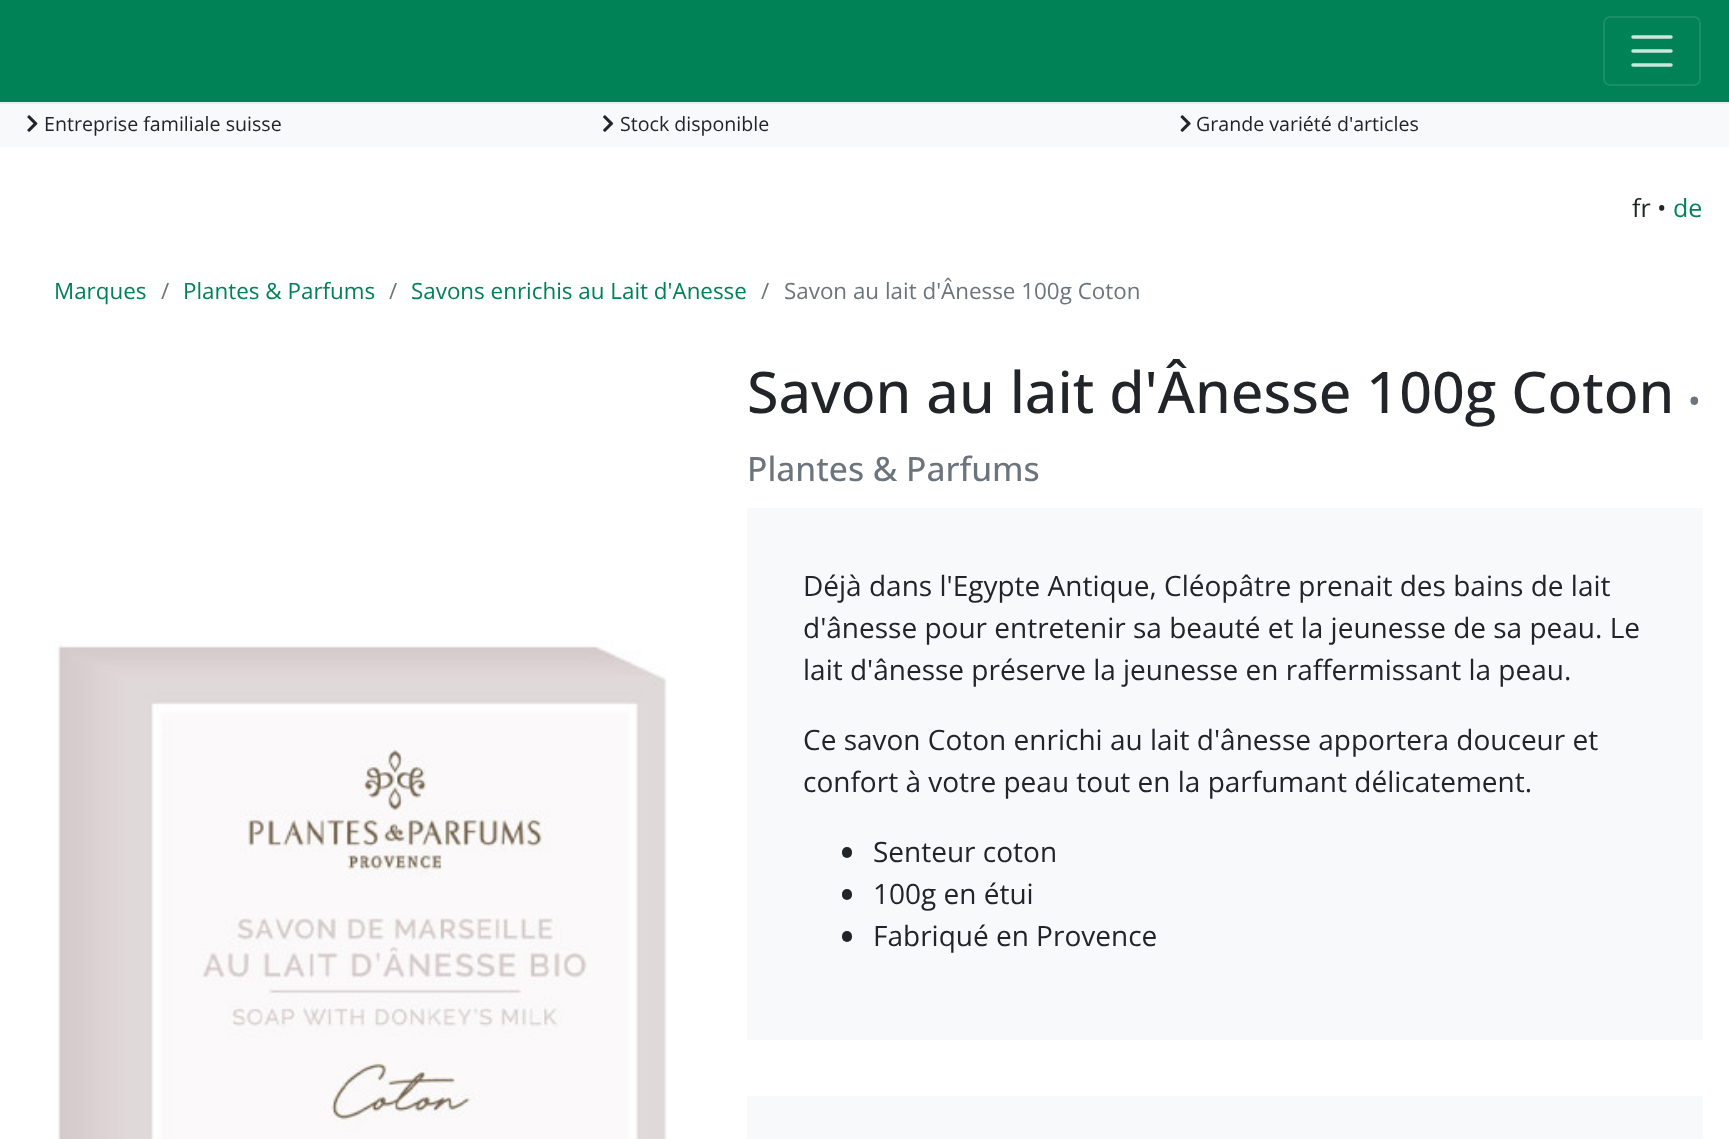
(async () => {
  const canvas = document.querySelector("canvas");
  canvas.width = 1729;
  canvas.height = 1139;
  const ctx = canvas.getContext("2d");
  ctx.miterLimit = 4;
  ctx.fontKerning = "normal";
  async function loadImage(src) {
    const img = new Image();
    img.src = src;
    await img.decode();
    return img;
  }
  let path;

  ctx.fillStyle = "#ffffff";
  ctx.fillRect(0, 0, 1729, 1139);
  ctx.fillStyle = "#008256";
  ctx.fillRect(0, 0, 1729, 102);
  ctx.fillStyle = "#e9ecef";
  ctx.fillRect(0, 102, 1729, 2);
  ctx.beginPath();
  ctx.roundRect(1604, 17, 96, 68, 6);
  ctx.strokeStyle = "#1a8f67";
  ctx.lineWidth = 2;
  ctx.stroke();
  path = new Path2D("M1633 37H1671M1633 51H1671M1633 65H1671");
  ctx.strokeStyle = "#cce6dd";
  ctx.lineWidth = 3.5;
  ctx.lineCap = "round";
  ctx.stroke(path);
  ctx.fillStyle = "#f8f9fa";
  ctx.fillRect(0, 104, 1729, 43);
  ctx.drawImage(await loadImage("img/1.png"), 27, 115, 11, 17);
  ctx.drawImage(await loadImage("img/2.png"), 603, 115, 11, 17);
  ctx.drawImage(await loadImage("img/3.png"), 1180, 115, 11, 17);
  ctx.drawImage(await loadImage("img/4.png"), 53, 641, 614, 498);
  ctx.fillRect(747, 508, 956, 532);
  ctx.fillStyle = "#212529";
  ctx.beginPath();
  ctx.roundRect(842, 847, 10, 11, 5);
  ctx.fill();
  ctx.beginPath();
  ctx.roundRect(842, 889, 10, 11, 5);
  ctx.fill();
  ctx.beginPath();
  ctx.roundRect(842, 931, 10, 11, 5);
  ctx.fill();
  ctx.fillStyle = "#f8f9fa";
  ctx.fillRect(747, 1096, 956, 43);
  ctx.font = "19.6px Open Sans";
  ctx.fillStyle = "#212529";
  for (const [text, x, y] of [
    ["Entreprise familiale suisse", 44, 131],
    ["Stock disponible", 620, 131],
    ["Grande variété d'articles", 1196, 131],
  ]) {
    ctx.fillText(text, x, y);
  }
  ctx.font = "25px Open Sans";
  ctx.fillText("fr •", 1632, 217);
  ctx.fillStyle = "#008256";
  ctx.fillText("de", 1673, 217);
  ctx.font = "22.4px Open Sans";
  ctx.fillText("Marques", 54, 299);
  ctx.fillStyle = "#6c757d";
  ctx.fillText("/", 161, 299);
  ctx.fillStyle = "#008256";
  ctx.fillText("Plantes & Parfums", 183, 299);
  ctx.fillStyle = "#6c757d";
  ctx.fillText("/", 389, 299);
  ctx.fillStyle = "#008256";
  ctx.fillText("Savons enrichis au Lait d'Anesse", 411, 299);
  ctx.fillStyle = "#6c757d";
  ctx.fillText("/", 761, 299);
  ctx.fillText("Savon au lait d'Ânesse 100g Coton", 784, 299);
  ctx.font = "500 57.4px Open Sans";
  ctx.fillStyle = "#212529";
  ctx.fillText("Savon au lait d'Ânesse 100g Coton", 747, 413);
  ctx.font = "500 33.5px Open Sans";
  ctx.fillStyle = "#6c757d";
  ctx.fillText("•", 1688, 413);
  ctx.fillText("Plantes & Parfums", 747, 481);
  ctx.font = "28px Open Sans";
  ctx.fillStyle = "#212529";
  for (const [text, x, y] of [
    ["Déjà dans l'Egypte Antique, Cléopâtre prenait des bains de lait", 803, 596],
    ["d'ânesse pour entretenir sa beauté et la jeunesse de sa peau. Le", 803, 638],
    ["lait d'ânesse préserve la jeunesse en raffermissant la peau.", 803, 680],
    ["Ce savon Coton enrichi au lait d'ânesse apportera douceur et", 803, 750],
    ["confort à votre peau tout en la parfumant délicatement.", 803, 792],
    ["Senteur coton", 873, 862],
    ["100g en étui", 873, 904],
    ["Fabriqué en Provence", 873, 946],
  ]) {
    ctx.fillText(text, x, y);
  }
})();
